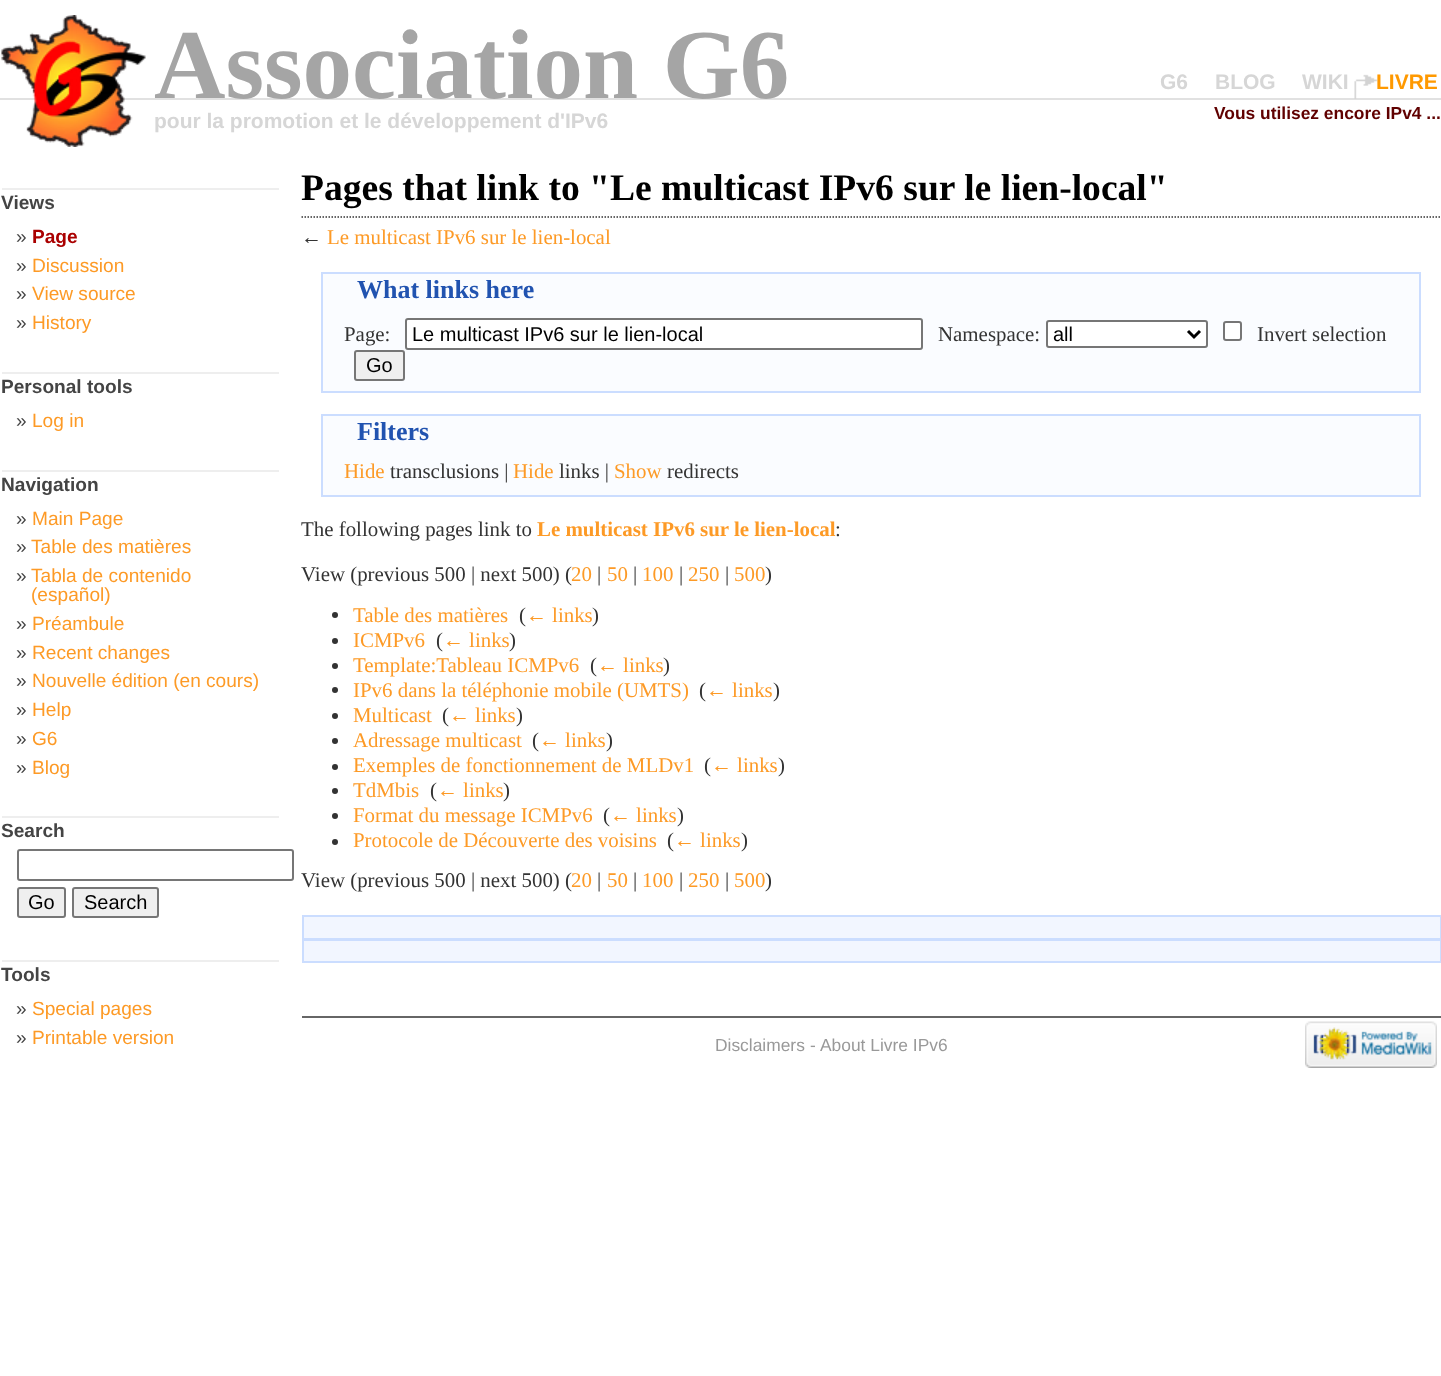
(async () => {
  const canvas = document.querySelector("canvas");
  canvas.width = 1441;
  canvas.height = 1376;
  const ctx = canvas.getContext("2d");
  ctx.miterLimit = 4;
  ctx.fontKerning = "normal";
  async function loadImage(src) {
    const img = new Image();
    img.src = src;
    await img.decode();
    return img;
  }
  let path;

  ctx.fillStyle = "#ffffff";
  ctx.fillRect(0, 0, 1441, 1376);
  ctx.fillStyle = "#e1e1e1";
  ctx.fillRect(0, 98, 1441, 2);
  ctx.drawImage(await loadImage("img/1.png"), 1, 15, 145, 132);
  ctx.drawImage(await loadImage("img/2.png"), 1354, 74, 24, 25);
  for (const [x, y, w, h, color] of [
    [2, 188, 277, 2, "#eeeeee"],
    [2, 372, 277, 2, "#eeeeee"],
    [2, 470, 277, 2, "#eeeeee"],
    [2, 816, 277, 2, "#eeeeee"],
  ]) {
    ctx.fillStyle = color;
    ctx.fillRect(x, y, w, h);
  }
  ctx.beginPath();
  ctx.roundRect(18, 850, 275, 30, 2);
  ctx.strokeStyle = "#767676";
  ctx.lineWidth = 2;
  ctx.stroke();
  ctx.fillStyle = "#efefef";
  ctx.beginPath();
  ctx.roundRect(18, 888, 47, 29, 2);
  ctx.fill();
  ctx.stroke();
  ctx.beginPath();
  ctx.roundRect(73, 888, 85, 29, 2);
  ctx.fill();
  ctx.stroke();
  ctx.fillStyle = "#eeeeee";
  ctx.fillRect(2, 960, 277, 2);
  path = new Path2D("M301.5 217H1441.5");
  ctx.strokeStyle = "#333333";
  ctx.lineWidth = 1.5;
  ctx.setLineDash([1.5, 1.5]);
  ctx.stroke(path);
  ctx.fillStyle = "#fafcff";
  ctx.beginPath();
  ctx.rect(322, 273, 1098, 119);
  ctx.fill();
  ctx.strokeStyle = "#cbddff";
  ctx.lineWidth = 2;
  ctx.setLineDash([]);
  ctx.stroke();
  ctx.fillStyle = "#ffffff";
  ctx.beginPath();
  ctx.roundRect(406, 319, 516, 30, 2);
  ctx.fill();
  ctx.strokeStyle = "#767676";
  ctx.stroke();
  ctx.beginPath();
  ctx.roundRect(1047, 321, 160, 26, 2);
  ctx.fill();
  ctx.stroke();
  path = new Path2D("M1188 331L1194 337L1200 331");
  ctx.strokeStyle = "#000000";
  ctx.lineWidth = 3;
  ctx.stroke(path);
  ctx.beginPath();
  ctx.roundRect(1224, 322, 17, 18, 2);
  ctx.fill();
  ctx.strokeStyle = "#767676";
  ctx.lineWidth = 2;
  ctx.stroke();
  ctx.fillStyle = "#efefef";
  ctx.beginPath();
  ctx.roundRect(355, 351, 49, 29, 2);
  ctx.fill();
  ctx.stroke();
  ctx.fillStyle = "#fafcff";
  ctx.beginPath();
  ctx.rect(322, 415, 1098, 81);
  ctx.fill();
  ctx.strokeStyle = "#cbddff";
  ctx.stroke();
  ctx.fillStyle = "#333333";
  ctx.beginPath();
  ctx.arc(335, 615, 3, 0, Math.PI * 2);
  ctx.fill();
  ctx.beginPath();
  ctx.arc(335, 641, 3, 0, Math.PI * 2);
  ctx.fill();
  ctx.beginPath();
  ctx.arc(335, 666, 3, 0, Math.PI * 2);
  ctx.fill();
  ctx.beginPath();
  ctx.arc(335, 690, 3, 0, Math.PI * 2);
  ctx.fill();
  ctx.beginPath();
  ctx.arc(335, 716, 3, 0, Math.PI * 2);
  ctx.fill();
  ctx.beginPath();
  ctx.arc(335, 741, 3, 0, Math.PI * 2);
  ctx.fill();
  ctx.beginPath();
  ctx.arc(335, 767, 3, 0, Math.PI * 2);
  ctx.fill();
  ctx.beginPath();
  ctx.arc(335, 791, 3, 0, Math.PI * 2);
  ctx.fill();
  ctx.beginPath();
  ctx.arc(335, 816, 3, 0, Math.PI * 2);
  ctx.fill();
  ctx.beginPath();
  ctx.arc(335, 842, 3, 0, Math.PI * 2);
  ctx.fill();
  ctx.fillStyle = "#f2f6ff";
  ctx.beginPath();
  ctx.rect(303, 916, 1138, 46);
  ctx.fill();
  ctx.stroke();
  ctx.fillStyle = "#cbddff";
  ctx.fillRect(303, 938, 1137, 3);
  ctx.fillStyle = "#666666";
  ctx.fillRect(302, 1016, 1139, 2);
  ctx.drawImage(await loadImage("img/3.png"), 1305, 1021, 132, 47);
  ctx.font = "bold 99px Liberation Serif";
  ctx.fillStyle = "#a5a5a5";
  ctx.fillText("Association G6", 154, 98);
  ctx.font = "bold 21px Liberation Sans";
  ctx.fillStyle = "#d6d6d6";
  for (const [text, x, y] of [
    ["pour la promotion et le développement d'IPv6", 154, 128],
    ["G6", 1160, 89],
    ["BLOG", 1215, 89],
    ["WIKI", 1302, 89],
  ]) {
    ctx.fillText(text, x, y);
  }
  ctx.fillStyle = "#ff9900";
  ctx.fillText("LIVRE", 1376, 89);
  ctx.font = "bold 17.4px Liberation Sans";
  ctx.fillStyle = "#600000";
  ctx.fillText("Vous utilisez encore IPv4 ...", 1214, 119);
  ctx.font = "bold 19.1px Liberation Sans";
  ctx.fillStyle = "#444444";
  ctx.fillText("Views", 1, 209);
  ctx.font = "19.1px Liberation Sans";
  ctx.fillText("»", 16, 243);
  ctx.font = "bold 19.1px Liberation Sans";
  ctx.fillStyle = "#aa0000";
  ctx.fillText("Page", 32, 243);
  ctx.font = "19.1px Liberation Sans";
  ctx.fillStyle = "#444444";
  ctx.fillText("»", 16, 272);
  ctx.fillStyle = "#fd9a26";
  ctx.fillText("Discussion", 32, 272);
  ctx.fillStyle = "#444444";
  ctx.fillText("»", 16, 300);
  ctx.fillStyle = "#fd9a26";
  ctx.fillText("View source", 32, 300);
  ctx.fillStyle = "#444444";
  ctx.fillText("»", 16, 329);
  ctx.fillStyle = "#fd9a26";
  ctx.fillText("History", 32, 329);
  ctx.font = "bold 19.1px Liberation Sans";
  ctx.fillStyle = "#444444";
  ctx.fillText("Personal tools", 1, 393);
  ctx.font = "19.1px Liberation Sans";
  ctx.fillText("»", 16, 427);
  ctx.fillStyle = "#fd9a26";
  ctx.fillText("Log in", 32, 427);
  ctx.font = "bold 19.1px Liberation Sans";
  ctx.fillStyle = "#444444";
  ctx.fillText("Navigation", 1, 491);
  ctx.font = "19.1px Liberation Sans";
  ctx.fillText("»", 16, 525);
  ctx.fillStyle = "#fd9a26";
  ctx.fillText("Main Page", 32, 525);
  ctx.fillStyle = "#444444";
  ctx.fillText("»", 16, 553);
  ctx.fillStyle = "#fd9a26";
  ctx.fillText("Table des matières", 31, 553);
  ctx.fillStyle = "#444444";
  ctx.fillText("»", 16, 582);
  ctx.fillStyle = "#fd9a26";
  ctx.fillText("Tabla de contenido", 31, 582);
  ctx.fillText("(español)", 31, 601);
  ctx.fillStyle = "#444444";
  ctx.fillText("»", 16, 630);
  ctx.fillStyle = "#fd9a26";
  ctx.fillText("Préambule", 32, 630);
  ctx.fillStyle = "#444444";
  ctx.fillText("»", 16, 659);
  ctx.fillStyle = "#fd9a26";
  ctx.fillText("Recent changes", 32, 659);
  ctx.fillStyle = "#444444";
  ctx.fillText("»", 16, 687);
  ctx.fillStyle = "#fd9a26";
  ctx.fillText("Nouvelle édition (en cours)", 32, 687);
  ctx.fillStyle = "#444444";
  ctx.fillText("»", 16, 716);
  ctx.fillStyle = "#fd9a26";
  ctx.fillText("Help", 32, 716);
  ctx.fillStyle = "#444444";
  ctx.fillText("»", 16, 745);
  ctx.fillStyle = "#fd9a26";
  ctx.fillText("G6", 32, 745);
  ctx.fillStyle = "#444444";
  ctx.fillText("»", 16, 774);
  ctx.fillStyle = "#fd9a26";
  ctx.fillText("Blog", 32, 774);
  ctx.font = "bold 19.1px Liberation Sans";
  ctx.fillStyle = "#444444";
  ctx.fillText("Search", 1, 837);
  ctx.font = "20px Liberation Sans";
  ctx.fillStyle = "#000000";
  ctx.fillText("Go", 28, 909);
  ctx.fillText("Search", 84, 909);
  ctx.font = "bold 19.1px Liberation Sans";
  ctx.fillStyle = "#444444";
  ctx.fillText("Tools", 1, 981);
  ctx.font = "19.1px Liberation Sans";
  ctx.fillText("»", 16, 1015);
  ctx.fillStyle = "#fd9a26";
  ctx.fillText("Special pages", 32, 1015);
  ctx.fillStyle = "#444444";
  ctx.fillText("»", 16, 1044);
  ctx.fillStyle = "#fd9a26";
  ctx.fillText("Printable version", 32, 1044);
  ctx.font = "bold 37.6px Liberation Serif";
  ctx.fillStyle = "#000000";
  ctx.fillText("Pages that link to \"Le multicast IPv6 sur le lien-local\"", 301, 200);
  ctx.font = "20.9px Liberation Serif";
  ctx.fillStyle = "#333333";
  ctx.fillText("←", 301, 244);
  ctx.fillStyle = "#fd9a26";
  ctx.fillText("Le multicast IPv6 sur le lien-local", 327, 244);
  ctx.font = "bold 26px Liberation Serif";
  ctx.fillStyle = "#2153b0";
  ctx.fillText("What links here", 357, 298);
  ctx.font = "20.9px Liberation Serif";
  ctx.fillStyle = "#333333";
  ctx.fillText("Page:", 344, 341);
  ctx.font = "20px Liberation Sans";
  ctx.fillStyle = "#000000";
  ctx.fillText("Le multicast IPv6 sur le lien-local", 412, 341);
  ctx.font = "20.9px Liberation Serif";
  ctx.fillStyle = "#333333";
  ctx.fillText("Namespace:", 938, 341);
  ctx.font = "20px Liberation Sans";
  ctx.fillStyle = "#000000";
  ctx.fillText("all", 1053, 341);
  ctx.font = "20.9px Liberation Serif";
  ctx.fillStyle = "#333333";
  ctx.fillText("Invert selection", 1257, 341);
  ctx.font = "20px Liberation Sans";
  ctx.fillStyle = "#000000";
  ctx.fillText("Go", 366, 372);
  ctx.font = "bold 26px Liberation Serif";
  ctx.fillStyle = "#2153b0";
  ctx.fillText("Filters", 357, 440);
  ctx.font = "20.9px Liberation Serif";
  ctx.fillStyle = "#fd9a26";
  ctx.fillText("Hide", 344, 478);
  ctx.fillStyle = "#333333";
  ctx.fillText("transclusions |", 390, 478);
  ctx.fillStyle = "#fd9a26";
  ctx.fillText("Hide", 513, 478);
  ctx.fillStyle = "#333333";
  ctx.fillText("links |", 559, 478);
  ctx.fillStyle = "#fd9a26";
  ctx.fillText("Show", 614, 478);
  ctx.fillStyle = "#333333";
  ctx.fillText("redirects", 667, 478);
  ctx.fillText("The following pages link to", 301, 536);
  ctx.font = "bold 20.9px Liberation Serif";
  ctx.fillStyle = "#fd9a26";
  ctx.fillText("Le multicast IPv6 sur le lien-local", 537, 536);
  ctx.font = "20.9px Liberation Serif";
  ctx.fillStyle = "#333333";
  ctx.fillText(":", 835, 536);
  ctx.fillText("View (previous 500 | next 500) (", 301, 581);
  ctx.fillStyle = "#fd9a26";
  ctx.fillText("20", 571, 581);
  ctx.fillStyle = "#333333";
  ctx.fillText("|", 597, 581);
  ctx.fillStyle = "#fd9a26";
  ctx.fillText("50", 607, 581);
  ctx.fillStyle = "#333333";
  ctx.fillText("|", 633, 581);
  ctx.fillStyle = "#fd9a26";
  ctx.fillText("100", 642, 581);
  ctx.fillStyle = "#333333";
  ctx.fillText("|", 679, 581);
  ctx.fillStyle = "#fd9a26";
  ctx.fillText("250", 688, 581);
  ctx.fillStyle = "#333333";
  ctx.fillText("|", 725, 581);
  ctx.fillStyle = "#fd9a26";
  ctx.fillText("500", 734, 581);
  ctx.fillStyle = "#333333";
  ctx.fillText(")", 765, 581);
  ctx.fillStyle = "#fd9a26";
  ctx.fillText("Table des matières", 353, 622);
  ctx.fillStyle = "#333333";
  ctx.fillText("(", 519, 622);
  ctx.fillStyle = "#fd9a26";
  ctx.fillText("← links", 526, 622);
  ctx.fillStyle = "#333333";
  ctx.fillText(")", 592, 622);
  ctx.fillStyle = "#fd9a26";
  ctx.fillText("ICMPv6", 353, 647);
  ctx.fillStyle = "#333333";
  ctx.fillText("(", 436, 647);
  ctx.fillStyle = "#fd9a26";
  ctx.fillText("← links", 443, 647);
  ctx.fillStyle = "#333333";
  ctx.fillText(")", 509, 647);
  ctx.fillStyle = "#fd9a26";
  ctx.fillText("Template:Tableau ICMPv6", 353, 672);
  ctx.fillStyle = "#333333";
  ctx.fillText("(", 590, 672);
  ctx.fillStyle = "#fd9a26";
  ctx.fillText("← links", 597, 672);
  ctx.fillStyle = "#333333";
  ctx.fillText(")", 663, 672);
  ctx.fillStyle = "#fd9a26";
  ctx.fillText("IPv6 dans la téléphonie mobile (UMTS)", 353, 697);
  ctx.fillStyle = "#333333";
  ctx.fillText("(", 699, 697);
  ctx.fillStyle = "#fd9a26";
  ctx.fillText("← links", 706, 697);
  ctx.fillStyle = "#333333";
  ctx.fillText(")", 773, 697);
  ctx.fillStyle = "#fd9a26";
  ctx.fillText("Multicast", 353, 722);
  ctx.fillStyle = "#333333";
  ctx.fillText("(", 442, 722);
  ctx.fillStyle = "#fd9a26";
  ctx.fillText("← links", 449, 722);
  ctx.fillStyle = "#333333";
  ctx.fillText(")", 516, 722);
  ctx.fillStyle = "#fd9a26";
  ctx.fillText("Adressage multicast", 353, 747);
  ctx.fillStyle = "#333333";
  ctx.fillText("(", 532, 747);
  ctx.fillStyle = "#fd9a26";
  ctx.fillText("← links", 539, 747);
  ctx.fillStyle = "#333333";
  ctx.fillText(")", 606, 747);
  ctx.fillStyle = "#fd9a26";
  ctx.fillText("Exemples de fonctionnement de MLDv1", 353, 772);
  ctx.fillStyle = "#333333";
  ctx.fillText("(", 704, 772);
  ctx.fillStyle = "#fd9a26";
  ctx.fillText("← links", 711, 772);
  ctx.fillStyle = "#333333";
  ctx.fillText(")", 778, 772);
  ctx.fillStyle = "#fd9a26";
  ctx.fillText("TdMbis", 353, 797);
  ctx.fillStyle = "#333333";
  ctx.fillText("(", 430, 797);
  ctx.fillStyle = "#fd9a26";
  ctx.fillText("← links", 437, 797);
  ctx.fillStyle = "#333333";
  ctx.fillText(")", 503, 797);
  ctx.fillStyle = "#fd9a26";
  ctx.fillText("Format du message ICMPv6", 353, 822);
  ctx.fillStyle = "#333333";
  ctx.fillText("(", 603, 822);
  ctx.fillStyle = "#fd9a26";
  ctx.fillText("← links", 610, 822);
  ctx.fillStyle = "#333333";
  ctx.fillText(")", 677, 822);
  ctx.fillStyle = "#fd9a26";
  ctx.fillText("Protocole de Découverte des voisins", 353, 847);
  ctx.fillStyle = "#333333";
  ctx.fillText("(", 667, 847);
  ctx.fillStyle = "#fd9a26";
  ctx.fillText("← links", 674, 847);
  ctx.fillStyle = "#333333";
  ctx.fillText(")", 741, 847);
  ctx.fillText("View (previous 500 | next 500) (", 301, 887);
  ctx.fillStyle = "#fd9a26";
  ctx.fillText("20", 571, 887);
  ctx.fillStyle = "#333333";
  ctx.fillText("|", 597, 887);
  ctx.fillStyle = "#fd9a26";
  ctx.fillText("50", 607, 887);
  ctx.fillStyle = "#333333";
  ctx.fillText("|", 633, 887);
  ctx.fillStyle = "#fd9a26";
  ctx.fillText("100", 642, 887);
  ctx.fillStyle = "#333333";
  ctx.fillText("|", 679, 887);
  ctx.fillStyle = "#fd9a26";
  ctx.fillText("250", 688, 887);
  ctx.fillStyle = "#333333";
  ctx.fillText("|", 725, 887);
  ctx.fillStyle = "#fd9a26";
  ctx.fillText("500", 734, 887);
  ctx.fillStyle = "#333333";
  ctx.fillText(")", 765, 887);
  ctx.font = "17.4px Liberation Sans";
  ctx.fillStyle = "#999999";
  for (const [text, x, y] of [
    ["Disclaimers", 715, 1051],
    ["-", 810, 1051],
    ["About Livre IPv6", 820, 1051],
  ]) {
    ctx.fillText(text, x, y);
  }
})();
